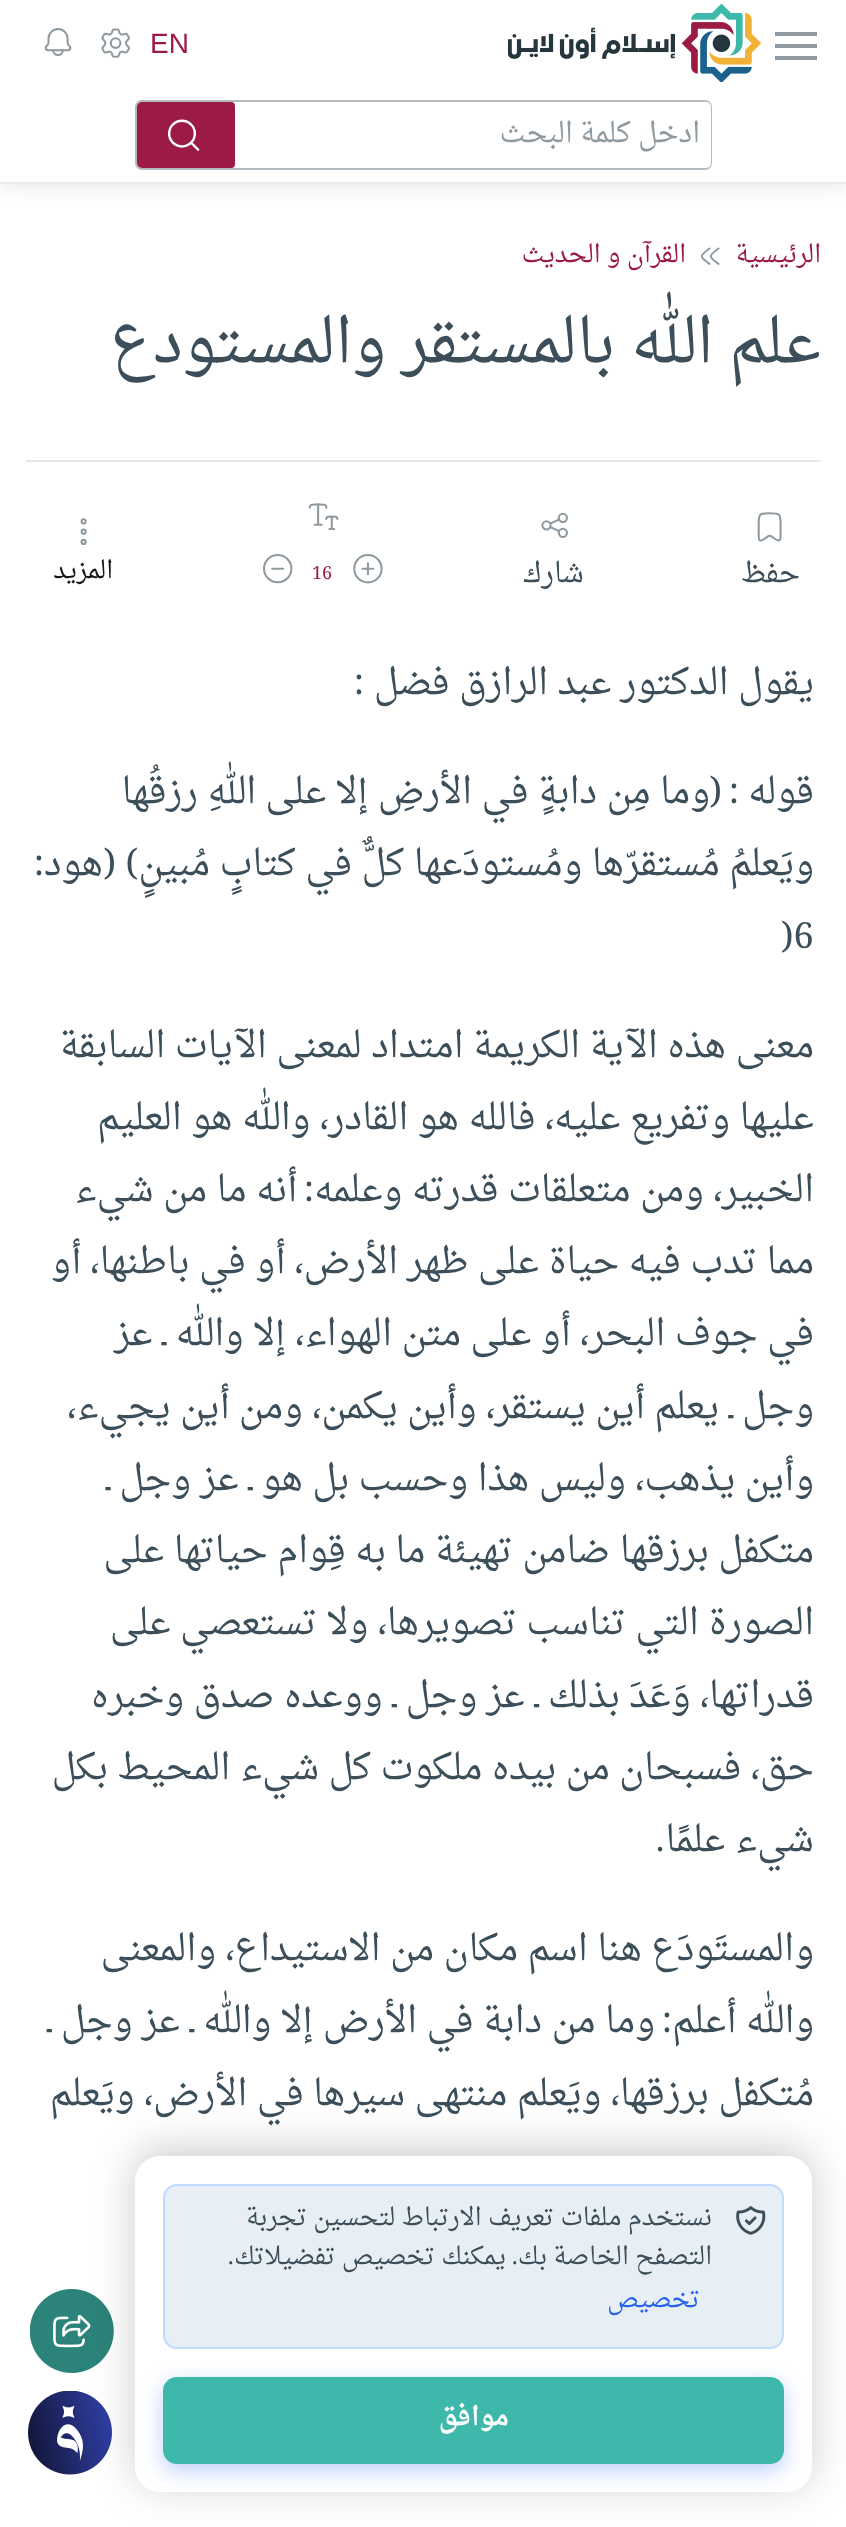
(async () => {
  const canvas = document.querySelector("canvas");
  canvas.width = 846;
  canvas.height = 2527;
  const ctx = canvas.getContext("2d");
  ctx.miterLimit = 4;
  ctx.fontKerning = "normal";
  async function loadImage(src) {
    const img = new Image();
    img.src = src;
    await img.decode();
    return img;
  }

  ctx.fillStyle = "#ffffff";
  ctx.fillRect(0, 0, 846, 2527);
  ctx.fillStyle = "rgba(0, 0, 0, 0.12)";
  ctx.filter = "blur(10.5px)";
  ctx.beginPath();
  ctx.rect(0, 0, 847, 184);
  ctx.fill();
  ctx.filter = "none";
  for (const [x, y, w, h, color] of [
    [0, 0, 846, 182, "#ffffff"],
    [0, 182, 846, 2, "#ebebeb"],
    [775, 44, 42, 4, "#8f99a0"],
    [775, 32, 42, 4, "#8f99a0"],
    [775, 56, 42, 4, "#8f99a0"],
  ]) {
    ctx.fillStyle = color;
    ctx.fillRect(x, y, w, h);
  }
  ctx.drawImage(await loadImage("img/1.png"), 508, 4, 253, 78);
  ctx.drawImage(await loadImage("img/2.png"), 101, 28, 29, 30);
  ctx.drawImage(await loadImage("img/3.png"), 44, 28, 28, 28);
  ctx.beginPath();
  ctx.roundRect(136, 101, 575, 68, 6);
  ctx.strokeStyle = "#b3babf";
  ctx.lineWidth = 2;
  ctx.stroke();
  ctx.fillStyle = "#ffffff";
  ctx.beginPath();
  ctx.roundRect(236, 102, 475, 66, [0, 5, 5, 0]);
  ctx.fill();
  ctx.fillStyle = "#9c1b44";
  ctx.beginPath();
  ctx.roundRect(137, 102, 98, 66, [5, 4, 4, 5]);
  ctx.fill();
  ctx.drawImage(await loadImage("img/4.png"), 167, 119, 33, 32);
  ctx.drawImage(await loadImage("img/5.png"), 700, 247, 20, 18);
  ctx.fillStyle = "#e6e6e6";
  ctx.fillRect(26, 460, 795, 2);
  ctx.drawImage(await loadImage("img/6.png"), 757, 512, 25, 30);
  ctx.drawImage(await loadImage("img/7.png"), 541, 512, 27, 26);
  ctx.drawImage(await loadImage("img/8.png"), 308, 503, 31, 27);
  ctx.drawImage(await loadImage("img/9.png"), 353, 554, 30, 30);
  ctx.drawImage(await loadImage("img/10.png"), 263, 554, 30, 30);
  ctx.drawImage(await loadImage("img/11.png"), 80, 518, 7, 27);
  ctx.drawImage(await loadImage("img/12.png"), 30, 2289, 84, 84);
  ctx.drawImage(await loadImage("img/14.png"), 28, 2391, 84, 84);
  ctx.fillStyle = "rgba(0, 0, 0, 0.2)";
  ctx.filter = "blur(21px)";
  ctx.beginPath();
  ctx.roundRect(135, 2149, 677, 336, 25);
  ctx.fill();
  ctx.filter = "none";
  ctx.fillStyle = "#ffffff";
  ctx.beginPath();
  ctx.roundRect(135, 2156, 677, 336, 25);
  ctx.fill();
  ctx.fillStyle = "#e8eff4";
  ctx.beginPath();
  ctx.roundRect(164, 2185, 619, 163, 13);
  ctx.fill();
  ctx.strokeStyle = "#bfdbfe";
  ctx.stroke();
  ctx.drawImage(await loadImage("img/13.png"), 736, 2206, 30, 29);
  ctx.fillStyle = "rgba(37, 99, 235, 0.3)";
  ctx.filter = "blur(10.5px)";
  ctx.beginPath();
  ctx.roundRect(163, 2384, 621, 87, 14);
  ctx.fill();
  ctx.filter = "none";
  ctx.fillStyle = "#3eb8ab";
  ctx.beginPath();
  ctx.roundRect(163, 2377, 621, 87, 14);
  ctx.fill();
  ctx.font = "28px Liberation Sans";
  ctx.fillStyle = "#9c1b44";
  ctx.fillText("EN", 150, 53);
  ctx.direction = "rtl";
  ctx.font = "28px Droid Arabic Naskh";
  ctx.fillStyle = "#8f99a0";
  ctx.fillText("ادخل كلمة البحث", 700, 142);
  ctx.font = "24.5px Droid Arabic Naskh";
  ctx.fillStyle = "#9c1b44";
  ctx.fillText("الرئيسية", 821, 262);
  ctx.fillText("القرآن و الحديث", 686, 262);
  ctx.font = "61.25px Droid Arabic Naskh";
  ctx.fillStyle = "#3c4e59";
  ctx.fillText("علم الله بالمستقر والمستودع", 821, 362);
  ctx.font = "28px Droid Arabic Naskh";
  ctx.fillText("حفظ", 800, 582);
  ctx.fillText("شارك", 584, 582);
  ctx.direction = "ltr";
  ctx.font = "18px Noto Naskh Arabic";
  ctx.fillStyle = "#9c1b44";
  ctx.fillText("16", 312, 579);
  ctx.direction = "rtl";
  ctx.font = "24.5px Droid Arabic Naskh";
  ctx.fillStyle = "#161616";
  ctx.fillText("المزيد", 113, 578);
  ctx.font = "36.1px Droid Arabic Naskh";
  ctx.fillStyle = "#3c4e59";
  ctx.fillText("يقول الدكتور عبد الرازق فضل", 814, 694);
  ctx.font = "36.1px Noto Naskh Arabic";
  ctx.fillText(":", 364, 694);
  ctx.font = "36.1px Droid Arabic Naskh";
  ctx.fillText("قوله", 814, 803);
  ctx.font = "36.1px Noto Naskh Arabic";
  ctx.fillText(":", 739, 803);
  ctx.fillText("(", 722, 803);
  ctx.font = "36.1px Droid Arabic Naskh";
  ctx.fillText("وما مِن دابةٍ في الأرضِ إلا على اللهِ رزقُها", 710, 803);
  ctx.fillText("ويَعلمُ مُستقرّها ومُستودَعها كلٌّ في كتابٍ مُبينٍ", 814, 875);
  ctx.font = "36.1px Noto Naskh Arabic";
  ctx.fillText(")", 138, 875);
  ctx.fillText("(", 116, 875);
  ctx.font = "36.1px Droid Arabic Naskh";
  ctx.fillText("هود", 103, 875);
  ctx.font = "36.1px Noto Naskh Arabic";
  ctx.fillText(":", 44, 875);
  ctx.direction = "ltr";
  ctx.fillText(")6", 781, 948);
  ctx.direction = "rtl";
  ctx.font = "36.1px Droid Arabic Naskh";
  for (const [text, x, y] of [
    ["معنى هذه الآية الكريمة امتداد لمعنى الآيات السابقة", 814, 1057],
    ["عليها وتفريع عليه، فالله هو القادر، والله هو العليم", 814, 1129],
    ["الخبير، ومن متعلقات قدرته وعلمه", 814, 1201],
  ]) {
    ctx.fillText(text, x, y);
  }
  ctx.font = "36.1px Noto Naskh Arabic";
  ctx.fillText(":", 314, 1201);
  ctx.font = "36.1px Droid Arabic Naskh";
  for (const [text, x, y] of [
    ["أنه ما من شيء", 297, 1201],
    ["مما تدب فيه حياة على ظهر الأرض، أو في باطنها، أو", 814, 1273],
    ["في جوف البحر، أو على متن الهواء، إلا والله ـ عز", 814, 1345],
    ["وجل ـ يعلم أين يستقر، وأين يكمن، ومن أين يجيء،", 814, 1418],
    ["وأين يذهب، وليس هذا وحسب بل هو ـ عز وجل ـ", 814, 1490],
    ["متكفل برزقها ضامن تهيئة ما به قِوام حياتها على", 814, 1562],
    ["الصورة التي تناسب تصويرها، ولا تستعصي على", 814, 1634],
    ["قدراتها، وَعَدَ بذلك ـ عز وجل ـ ووعده صدق وخبره", 814, 1707],
    ["حق، فسبحان من بيده ملكوت كل شيء المحيط بكل", 814, 1779],
    ["شيء علمًا", 814, 1851],
  ]) {
    ctx.fillText(text, x, y);
  }
  ctx.font = "36.1px Noto Naskh Arabic";
  ctx.fillText(".", 665, 1851);
  ctx.font = "36.1px Droid Arabic Naskh";
  ctx.fillText("والمستَودَع هنا اسم مكان من الاستيداع، والمعنى", 814, 1960);
  ctx.fillText("والله أعلم", 814, 2032);
  ctx.font = "36.1px Noto Naskh Arabic";
  ctx.fillText(":", 672, 2032);
  ctx.font = "36.1px Droid Arabic Naskh";
  ctx.fillText("وما من دابة في الأرض إلا والله ـ عز وجل ـ", 655, 2032);
  ctx.fillText("مُتكفل برزقها، ويَعلم منتهى سيرها في الأرض، ويَعلم", 814, 2105);
  ctx.font = "24.5px Droid Arabic Naskh";
  ctx.fillText("نستخدم ملفات تعريف الارتباط لتحسين تجربة", 712, 2225);
  ctx.fillText("التصفح الخاصة بك", 712, 2264);
  ctx.font = "24.5px Noto Naskh Arabic";
  ctx.fillText(".", 518, 2264);
  ctx.font = "24.5px Droid Arabic Naskh";
  ctx.fillText("يمكنك تخصيص تفضيلاتك", 506, 2264);
  ctx.font = "24.5px Noto Naskh Arabic";
  ctx.fillText(".", 234, 2264);
  ctx.font = "24.5px Droid Arabic Naskh";
  ctx.fillStyle = "#2563eb";
  ctx.fillText("تخصيص", 700, 2307);
  ctx.font = "bold 26px Droid Arabic Naskh";
  ctx.fillStyle = "#ffffff";
  ctx.fillText("موافق", 509, 2425);
})();
